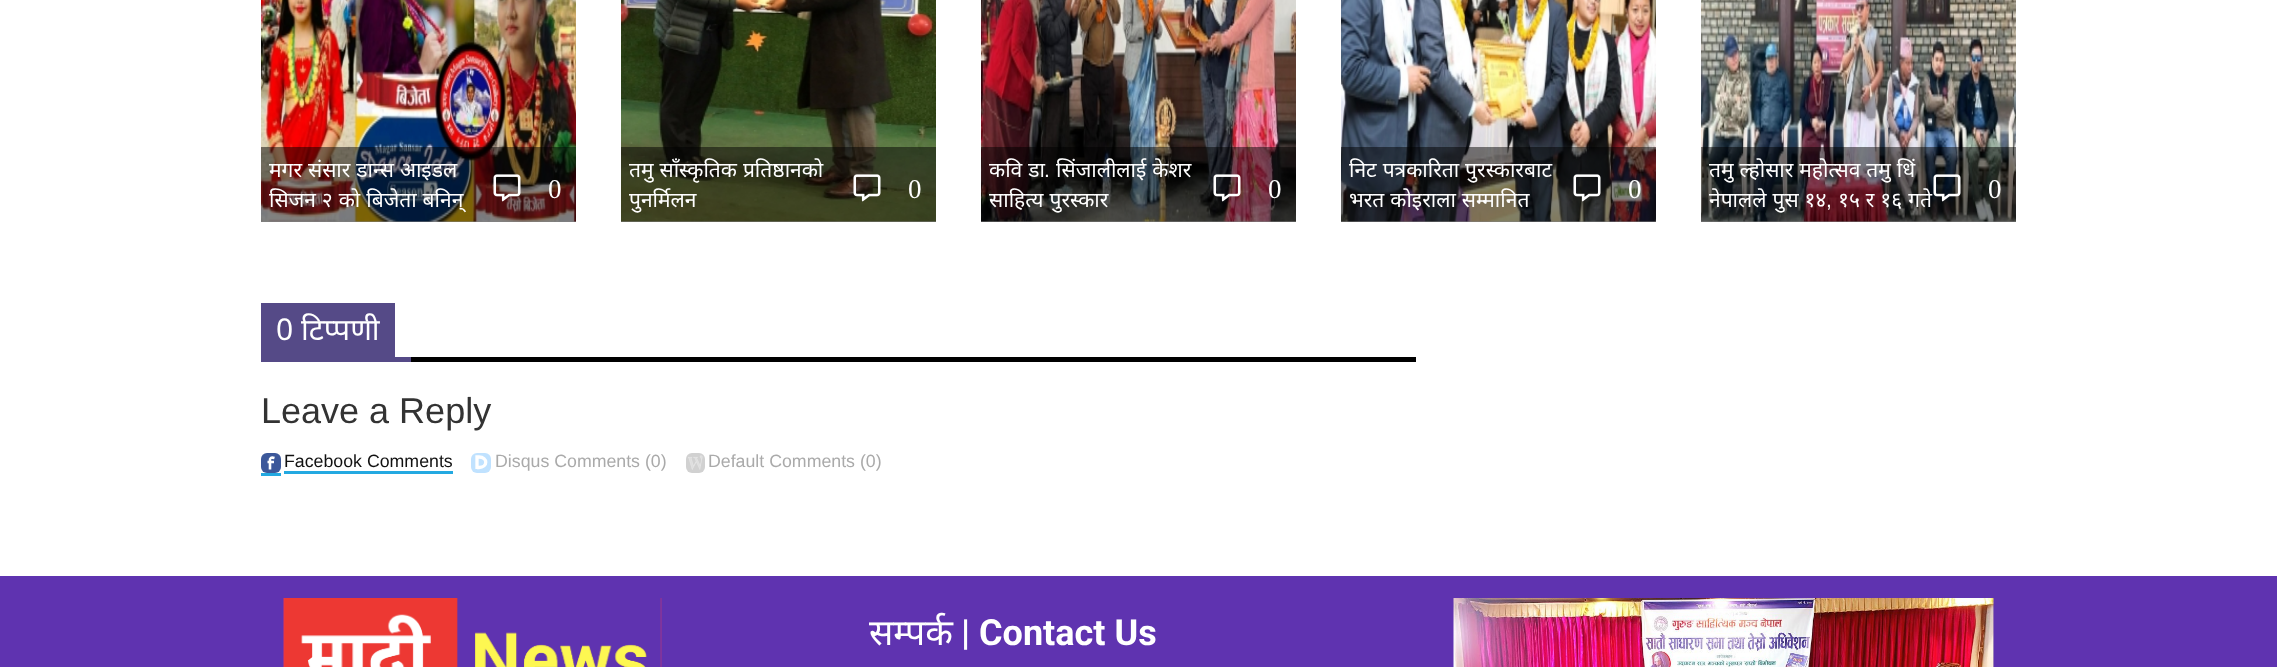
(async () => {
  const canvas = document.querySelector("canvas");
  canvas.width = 2277;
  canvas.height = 667;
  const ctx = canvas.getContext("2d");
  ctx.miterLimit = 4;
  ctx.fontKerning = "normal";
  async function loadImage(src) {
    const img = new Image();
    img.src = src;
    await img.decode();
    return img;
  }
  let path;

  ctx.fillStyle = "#ffffff";
  ctx.fillRect(0, 0, 2277, 667);
  ctx.drawImage(await loadImage("img/1.png"), 261, 0, 315, 222);
  ctx.fillStyle = "rgba(0, 0, 0, 0.49)";
  ctx.fillRect(261, 147, 315, 75);
  ctx.drawImage(await loadImage("img/2.png"), 493, 174, 28, 28);
  ctx.drawImage(await loadImage("img/3.png"), 621, 0, 315, 222);
  ctx.fillRect(621, 147, 315, 75);
  ctx.drawImage(await loadImage("img/4.png"), 853, 174, 28, 28);
  ctx.drawImage(await loadImage("img/5.png"), 981, 0, 315, 222);
  ctx.fillRect(981, 147, 315, 75);
  ctx.drawImage(await loadImage("img/6.png"), 1213, 174, 28, 28);
  ctx.drawImage(await loadImage("img/7.png"), 1341, 0, 315, 222);
  ctx.fillRect(1341, 147, 315, 75);
  ctx.drawImage(await loadImage("img/8.png"), 1573, 174, 28, 28);
  ctx.drawImage(await loadImage("img/9.png"), 1701, 0, 315, 222);
  ctx.fillRect(1701, 147, 315, 75);
  ctx.drawImage(await loadImage("img/10.png"), 1933, 174, 28, 28);
  for (const [x, y, w, h, color] of [
    [261, 303, 134, 54, "#554a87"],
    [411, 357, 1005, 5, "#000000"],
    [261, 357, 150, 5, "#554a87"],
    [261, 473, 20, 3, "#23a9e1"],
    [284, 471, 169, 3, "#23a9e1"],
  ]) {
    ctx.fillStyle = color;
    ctx.fillRect(x, y, w, h);
  }
  ctx.fillStyle = "#3c589a";
  ctx.beginPath();
  ctx.roundRect(261, 453, 20, 20, 6);
  ctx.fill();
  path = new Path2D("M270 469.5V461C269.5 458 271 457 274.5 458M267.5 462H274");
  ctx.strokeStyle = "#ffffff";
  ctx.lineWidth = 2.6;
  ctx.stroke(path);
  ctx.fillStyle = "#c0e2ff";
  ctx.beginPath();
  ctx.roundRect(471, 453, 20, 20, 6);
  ctx.fill();
  path = new Path2D("M477 469V457H479C488 457 488 467.5 479 467.5H477");
  ctx.lineWidth = 3.3;
  ctx.stroke(path);
  ctx.fillStyle = "#d1d1d1";
  ctx.beginPath();
  ctx.roundRect(686, 453, 19, 20, 6);
  ctx.fill();
  ctx.drawImage(await loadImage("img/11.png"), 688, 455, 15, 15);
  ctx.fillStyle = "#5f33b0";
  ctx.fillRect(0, 576, 2277, 91);
  ctx.drawImage(await loadImage("img/12.png"), 283, 598, 379, 69);
  ctx.drawImage(await loadImage("img/13.png"), 1453, 598, 541, 69);
  ctx.wordSpacing = "0.5px";
  ctx.font = "21px Noto Sans";
  ctx.fillStyle = "#ffffff";
  ctx.fillText("मगर संसार डान्स आइडल", 269, 177);
  ctx.fillText("सिजन २ को बिजेता बनिन्", 269, 207);
  ctx.wordSpacing = "0px";
  ctx.font = "27px Liberation Serif";
  ctx.fillText("0", 548, 198);
  ctx.wordSpacing = "0.5px";
  ctx.font = "21px Noto Sans";
  ctx.fillText("तमु साँस्कृतिक प्रतिष्ठानको", 629, 177);
  ctx.wordSpacing = "0px";
  ctx.fillText("पुनर्मिलन", 629, 207);
  ctx.font = "27px Liberation Serif";
  ctx.fillText("0", 908, 198);
  ctx.wordSpacing = "0.5px";
  ctx.font = "21px Noto Sans";
  ctx.fillText("कवि डा", 989, 177);
  ctx.wordSpacing = "0px";
  ctx.font = "21px Liberation Sans";
  ctx.fillText(".", 1044, 177);
  ctx.wordSpacing = "0.5px";
  ctx.font = "21px Noto Sans";
  ctx.fillText("सिंजालीलाई केशर", 1056, 177);
  ctx.fillText("साहित्य पुरस्कार", 989, 207);
  ctx.wordSpacing = "0px";
  ctx.font = "27px Liberation Serif";
  ctx.fillText("0", 1268, 198);
  ctx.wordSpacing = "0.5px";
  ctx.font = "21px Noto Sans";
  ctx.fillText("निट पत्रकारिता पुरस्कारबाट", 1349, 177);
  ctx.fillText("भरत कोइराला सम्मानित", 1349, 207);
  ctx.wordSpacing = "0px";
  ctx.font = "27px Liberation Serif";
  ctx.fillText("0", 1628, 198);
  ctx.wordSpacing = "0.5px";
  ctx.font = "21px Noto Sans";
  ctx.fillText("तमु ल्होसार महोत्सव तमु धिं", 1709, 177);
  ctx.fillText("नेपालले पुस १४", 1709, 207);
  ctx.wordSpacing = "0px";
  ctx.font = "21px Liberation Sans";
  ctx.fillText(",", 1826, 207);
  ctx.wordSpacing = "0.5px";
  ctx.font = "21px Noto Sans";
  ctx.fillText("१५ र १६ गते", 1838, 207);
  ctx.wordSpacing = "0px";
  ctx.font = "27px Liberation Serif";
  ctx.fillText("0", 1988, 198);
  ctx.font = "30px Noto Sans";
  ctx.fillText("0 टिप्पणी", 276, 340);
  ctx.font = "36px Liberation Sans";
  ctx.fillStyle = "#333333";
  ctx.fillText("Leave a Reply", 261, 423);
  ctx.font = "17.75px Liberation Sans";
  ctx.fillStyle = "#111111";
  ctx.fillText("Facebook Comments", 284, 467);
  ctx.fillStyle = "#aaaaaa";
  ctx.fillText("Disqus Comments (0)", 495, 467);
  ctx.fillText("Default Comments (0)", 708, 467);
  ctx.font = "36px Noto Sans";
  ctx.fillStyle = "#ffffff";
  ctx.fillText("सम्पर्क", 869, 645);
  ctx.font = "bold 36px Roboto";
  ctx.fillText("| Contact Us", 961, 645);
})();
